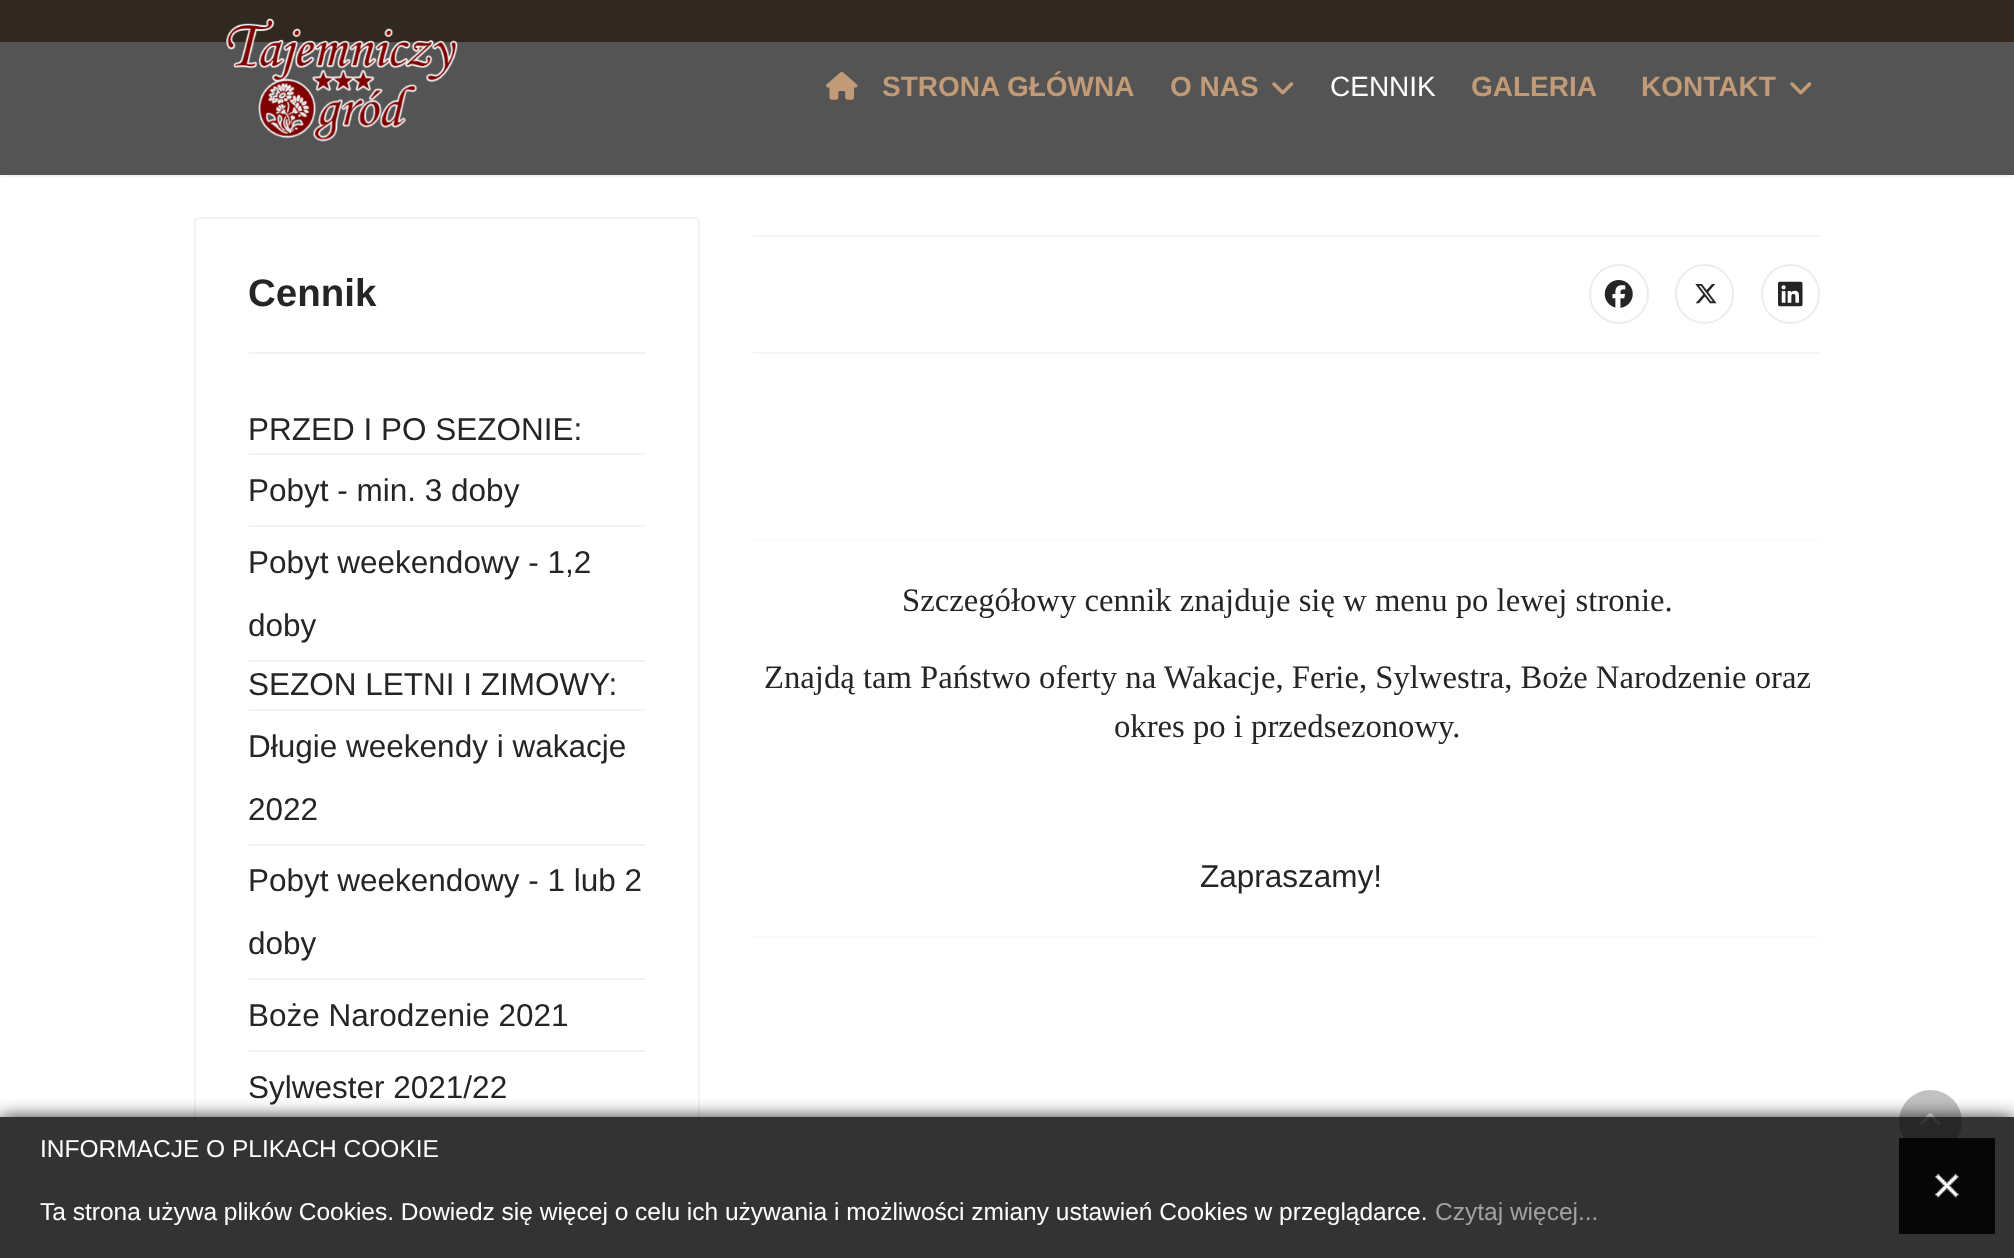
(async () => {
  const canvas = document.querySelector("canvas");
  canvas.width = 2014;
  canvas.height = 1258;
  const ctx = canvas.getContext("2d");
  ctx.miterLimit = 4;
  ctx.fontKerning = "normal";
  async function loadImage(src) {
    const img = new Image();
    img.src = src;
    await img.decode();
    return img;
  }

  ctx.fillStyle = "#ffffff";
  ctx.fillRect(0, 0, 2014, 1258);
  ctx.fillStyle = "#545454";
  ctx.fillRect(0, 42, 2014, 133);
  ctx.fillStyle = "#31281f";
  ctx.fillRect(0, 0, 2014, 42);
  ctx.save();
  ctx.beginPath();
  ctx.rect(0, 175, 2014, 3);
  ctx.clip();
  ctx.fillStyle = "rgba(0, 0, 0, 0.1)";
  ctx.filter = "blur(3.5px)";
  ctx.beginPath();
  ctx.rect(0, 0, 2014, 175);
  ctx.fill();
  ctx.filter = "none";
  ctx.restore();
  ctx.drawImage(await loadImage("img/1.png"), 226, 18, 232, 124);
  ctx.drawImage(await loadImage("img/2.png"), 826, 71, 32, 29);
  ctx.drawImage(await loadImage("img/3.png"), 1272, 82, 22, 13);
  ctx.drawImage(await loadImage("img/3.png"), 1790, 82, 22, 13);
  ctx.beginPath();
  ctx.roundRect(195, 218, 504, 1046, 4);
  ctx.strokeStyle = "#f3f3f3";
  ctx.lineWidth = 2;
  ctx.stroke();
  for (const [x, y, w, h, color] of [
    [249, 352, 397, 2, "#f3f3f3"],
    [249, 453, 397, 2, "#f3f3f3"],
    [249, 525, 397, 2, "#f3f3f3"],
    [249, 660, 397, 2, "#f3f3f3"],
    [249, 709, 397, 2, "#f3f3f3"],
    [249, 844, 397, 2, "#f3f3f3"],
    [249, 978, 397, 2, "#f3f3f3"],
    [249, 1050, 397, 2, "#f3f3f3"],
    [249, 1122, 397, 2, "#f3f3f3"],
    [249, 1194, 397, 2, "#f3f3f3"],
    [753, 235, 1067, 2, "#f5f5f5"],
    [753, 352, 1067, 2, "#f5f5f5"],
  ]) {
    ctx.fillStyle = color;
    ctx.fillRect(x, y, w, h);
  }
  ctx.beginPath();
  ctx.arc(1619, 294, 29, 0, Math.PI * 2);
  ctx.strokeStyle = "#ededed";
  ctx.stroke();
  ctx.drawImage(await loadImage("img/4.png"), 1604, 280, 29, 28);
  ctx.beginPath();
  ctx.roundRect(1676, 265, 57, 58, 28.5);
  ctx.stroke();
  ctx.drawImage(await loadImage("img/5.png"), 1695, 284, 22, 20);
  ctx.beginPath();
  ctx.roundRect(1762, 265, 57, 58, 28.5);
  ctx.stroke();
  ctx.drawImage(await loadImage("img/6.png"), 1778, 281, 25, 26);
  ctx.fillStyle = "#fbfbfb";
  ctx.fillRect(753, 539, 1067, 2);
  ctx.fillRect(753, 936, 1067, 2);
  ctx.fillStyle = "#c1c1c1";
  ctx.beginPath();
  ctx.arc(1930.5, 1121.5, 31.5, 0, Math.PI * 2);
  ctx.fill();
  ctx.drawImage(await loadImage("img/8.png"), 1919, 1113, 22, 13);
  ctx.save();
  ctx.beginPath();
  ctx.rect(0, 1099, 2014, 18);
  ctx.clip();
  ctx.fillStyle = "rgba(0, 0, 0, 0.8)";
  ctx.filter = "blur(9px)";
  ctx.beginPath();
  ctx.rect(0, 1117, 2014, 141);
  ctx.fill();
  ctx.filter = "none";
  ctx.restore();
  ctx.fillStyle = "rgba(0, 0, 0, 0.8)";
  ctx.fillRect(0, 1117, 2014, 141);
  ctx.fillStyle = "#060606";
  ctx.fillRect(1899, 1138, 96, 96);
  ctx.drawImage(await loadImage("img/7.png"), 1935, 1173, 24, 25);
  ctx.font = "bold 28px Liberation Sans";
  ctx.fillStyle = "#c19b77";
  ctx.fillText("STRONA GŁÓWNA", 882, 96);
  ctx.fillText("O NAS", 1170, 96);
  ctx.font = "28px Liberation Sans";
  ctx.fillStyle = "#ffffff";
  ctx.fillText("CENNIK", 1330, 96);
  ctx.font = "bold 28px Liberation Sans";
  ctx.fillStyle = "#c19b77";
  ctx.fillText("GALERIA", 1471, 96);
  ctx.fillText("KONTAKT", 1641, 96);
  ctx.font = "bold 38.5px Liberation Sans";
  ctx.fillStyle = "#252525";
  ctx.fillText("Cennik", 248, 306);
  ctx.font = "31.5px Liberation Sans";
  for (const [text, x, y] of [
    ["PRZED I PO SEZONIE:", 248, 440],
    ["Pobyt - min. 3 doby", 248, 501],
    ["Pobyt weekendowy - 1,2", 248, 573],
    ["doby", 248, 636],
    ["SEZON LETNI I ZIMOWY:", 248, 695],
    ["Długie weekendy i wakacje", 248, 757],
    ["2022", 248, 820],
    ["Pobyt weekendowy - 1 lub 2", 248, 891],
    ["doby", 248, 954],
    ["Boże Narodzenie 2021", 248, 1026],
    ["Sylwester 2021/22", 248, 1098],
  ]) {
    ctx.fillText(text, x, y);
  }
  ctx.font = "32.7px Liberation Serif";
  for (const [text, x, y] of [
    ["Szczegółowy cennik znajduje się w menu po lewej stronie.", 902, 611],
    ["Znajdą tam Państwo oferty na Wakacje, Ferie, Sylwestra, Boże Narodzenie oraz", 764, 688],
    ["okres po i przedsezonowy.", 1114, 737],
  ]) {
    ctx.fillText(text, x, y);
  }
  ctx.font = "31.5px Liberation Sans";
  ctx.fillText("Zapraszamy!", 1200, 887);
  ctx.font = "24.5px Liberation Sans";
  ctx.fillStyle = "#ffffff";
  ctx.fillText("INFORMACJE O PLIKACH COOKIE", 40, 1157);
  ctx.fillText("Ta strona używa plików Cookies. Dowiedz się więcej o celu ich używania i możliwości zmiany ustawień Cookies w przeglądarce.", 40, 1220);
  ctx.fillStyle = "#a2a2a2";
  ctx.fillText("Czytaj więcej...", 1435, 1220);
})();
